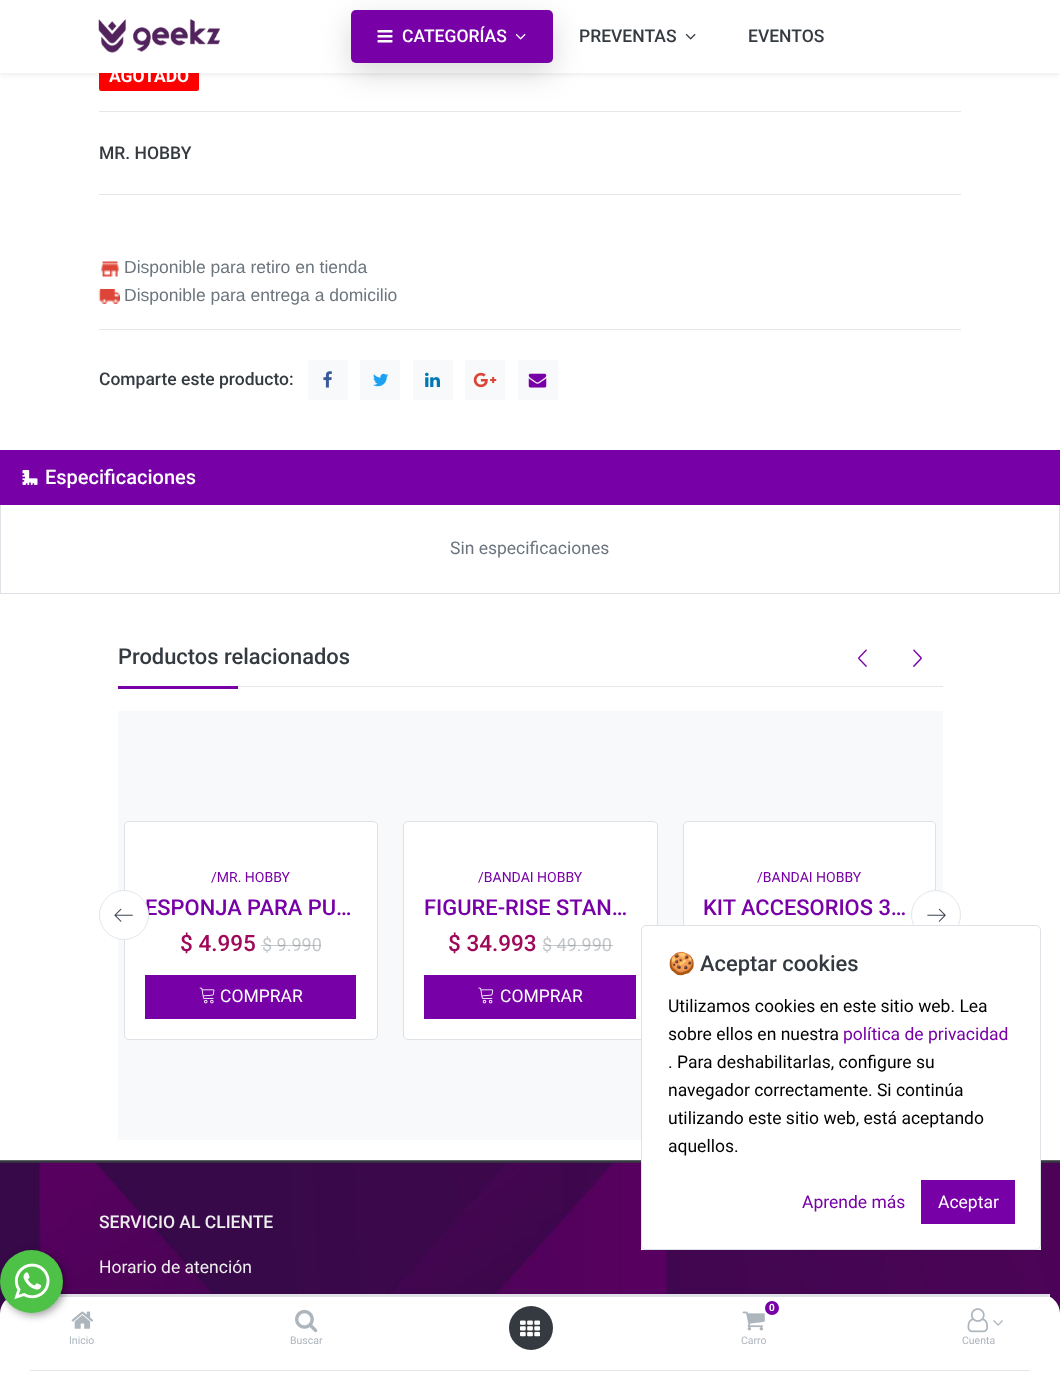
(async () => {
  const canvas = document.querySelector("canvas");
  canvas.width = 1060;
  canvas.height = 1374;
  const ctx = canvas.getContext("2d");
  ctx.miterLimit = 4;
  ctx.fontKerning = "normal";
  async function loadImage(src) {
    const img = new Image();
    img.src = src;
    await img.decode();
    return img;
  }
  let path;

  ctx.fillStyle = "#ffffff";
  ctx.fillRect(0, 0, 1060, 1374);
  ctx.fillStyle = "#343a40";
  ctx.fillRect(0, 1161, 1060, 2);
  ctx.drawImage(await loadImage("img/20.png"), 0, 1162, 1060, 152);
  ctx.fillStyle = "#ffffff";
  path = new Path2D("M20 1294H1040C1051 1294 1060 1303 1060 1314V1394H0V1314C0 1303 9 1294 20 1294Z");
  ctx.fill(path);
  ctx.fillStyle = "#dee2e6";
  ctx.fillRect(58, 1294, 992, 3);
  ctx.drawImage(await loadImage("img/21.png"), 71, 1311, 23, 18);
  ctx.fillStyle = "rgba(0, 0, 0, 0.4)";
  ctx.filter = "blur(4px)";
  ctx.beginPath();
  ctx.roundRect(3, 1253, 62, 62, 31);
  ctx.fill();
  ctx.filter = "none";
  ctx.fillStyle = "#4dc247";
  ctx.beginPath();
  ctx.arc(31.5, 1281.5, 31.5, 0, Math.PI * 2);
  ctx.fill();
  ctx.drawImage(await loadImage("img/1.png"), 14, 1263, 36, 37);
  ctx.fillStyle = "#ff0000";
  ctx.beginPath();
  ctx.roundRect(99, 60, 100, 31, 2.5);
  ctx.fill();
  ctx.fillStyle = "rgba(0, 0, 0, 0.07)";
  ctx.filter = "blur(2.5px)";
  ctx.beginPath();
  ctx.rect(0, 3, 1060, 72);
  ctx.fill();
  ctx.filter = "none";
  ctx.fillStyle = "#ffffff";
  ctx.fillRect(0, 0, 1060, 73);
  ctx.drawImage(await loadImage("img/2.png"), 98, 19, 122, 34);
  ctx.fillStyle = "#e6e6e6";
  ctx.fillRect(99, 111, 862, 1);
  ctx.fillStyle = "rgba(0, 0, 0, 0.15)";
  ctx.filter = "blur(15px)";
  ctx.beginPath();
  ctx.roundRect(351, 20, 202, 53, 5);
  ctx.fill();
  ctx.filter = "none";
  ctx.fillStyle = "#7701a6";
  ctx.beginPath();
  ctx.roundRect(351, 10, 202, 53, 5);
  ctx.fill();
  ctx.drawImage(await loadImage("img/3.png"), 377, 30, 16, 13);
  ctx.drawImage(await loadImage("img/4.png"), 515, 33, 11, 7);
  ctx.drawImage(await loadImage("img/5.png"), 685, 33, 11, 7);
  ctx.fillStyle = "#e6e6e6";
  ctx.fillRect(99, 194, 862, 1);
  ctx.drawImage(await loadImage("img/6.png"), 101, 261, 18, 16);
  ctx.drawImage(await loadImage("img/7.png"), 98, 289, 22, 15);
  ctx.fillRect(99, 329, 862, 1);
  ctx.fillStyle = "#f8f9fa";
  ctx.fillRect(308, 360, 40, 40);
  ctx.drawImage(await loadImage("img/8.png"), 323, 371, 9, 17);
  ctx.fillRect(360, 360, 40, 40);
  ctx.drawImage(await loadImage("img/9.png"), 373, 373, 16, 14);
  ctx.fillRect(413, 360, 40, 40);
  ctx.drawImage(await loadImage("img/10.png"), 425, 372, 15, 15);
  ctx.fillRect(465, 360, 40, 40);
  ctx.drawImage(await loadImage("img/11.png"), 473, 372, 24, 16);
  ctx.fillRect(518, 360, 40, 40);
  ctx.drawImage(await loadImage("img/12.png"), 528, 373, 19, 15);
  ctx.fillStyle = "#7701a6";
  ctx.fillRect(0, 450, 1060, 55);
  ctx.drawImage(await loadImage("img/13.png"), 22, 470, 16, 15);
  for (const [x, y, w, h, color] of [
    [1059, 505, 1, 89, "#dee2e6"],
    [0, 593, 1060, 1, "#dee2e6"],
    [0, 505, 1, 89, "#dee2e6"],
    [238, 686, 705, 1, "#e7e7e7"],
    [118, 686, 120, 3, "#7701a6"],
  ]) {
    ctx.fillStyle = color;
    ctx.fillRect(x, y, w, h);
  }
  ctx.drawImage(await loadImage("img/14.png"), 858, 649, 9, 18);
  ctx.drawImage(await loadImage("img/15.png"), 913, 649, 9, 18);
  ctx.fillStyle = "#f8f9fa";
  ctx.fillRect(118, 711, 825, 429);
  ctx.fillStyle = "#ffffff";
  ctx.beginPath();
  ctx.roundRect(124.5, 821.5, 253, 218, 4.5);
  ctx.fill();
  ctx.strokeStyle = "#dee2e6";
  ctx.stroke();
  ctx.fillStyle = "#7701a6";
  ctx.fillRect(145, 975, 211, 44);
  ctx.drawImage(await loadImage("img/16.png"), 199, 987, 16, 17);
  ctx.fillStyle = "#ffffff";
  ctx.beginPath();
  ctx.roundRect(403.5, 821.5, 254, 218, 4.5);
  ctx.fill();
  ctx.stroke();
  ctx.fillStyle = "#7701a6";
  ctx.fillRect(424, 975, 212, 44);
  ctx.drawImage(await loadImage("img/17.png"), 478, 987, 16, 17);
  ctx.fillStyle = "#ffffff";
  ctx.beginPath();
  ctx.roundRect(683.5, 821.5, 252, 218, 4.5);
  ctx.fill();
  ctx.stroke();
  ctx.beginPath();
  ctx.arc(936, 915, 24.5, 0, Math.PI * 2);
  ctx.fill();
  ctx.strokeStyle = "#e1e7ec";
  ctx.stroke();
  ctx.drawImage(await loadImage("img/19.png"), 927, 908, 19, 14);
  ctx.fillStyle = "#5d6166";
  ctx.fillRect(0, 1160, 1060, 1);
  ctx.fillStyle = "#ffffff";
  ctx.fillRect(641, 925, 400, 325);
  ctx.beginPath();
  ctx.roundRect(641.5, 925.5, 399, 324, 4.5);
  ctx.strokeStyle = "#dee2e6";
  ctx.stroke();
  ctx.fillStyle = "#7701a6";
  ctx.fillRect(921, 1180, 94, 44);
  ctx.drawImage(await loadImage("img/22.png"), 295, 1309, 23, 24);
  ctx.fillStyle = "#343a40";
  ctx.beginPath();
  ctx.arc(531, 1328, 22, 0, Math.PI * 2);
  ctx.fill();
  ctx.drawImage(await loadImage("img/23.png"), 520, 1320, 20, 17);
  ctx.fillStyle = "#7701a6";
  ctx.beginPath();
  ctx.arc(772, 1308, 7, 0, Math.PI * 2);
  ctx.fill();
  ctx.drawImage(await loadImage("img/24.png"), 742, 1311, 23, 20);
  ctx.drawImage(await loadImage("img/25.png"), 967, 1308, 21, 25);
  ctx.drawImage(await loadImage("img/26.png"), 993, 1320, 10, 6);
  ctx.fillStyle = "#e6e6e6";
  ctx.fillRect(30, 1370, 1000, 1);
  ctx.font = "500 17.5px Roboto";
  ctx.fillStyle = "#ffffff";
  ctx.fillText("CATEGORÍAS", 402, 42);
  ctx.fillStyle = "#343a40";
  ctx.fillText("PREVENTAS", 579, 42);
  ctx.fillText("EVENTOS", 748, 42);
  ctx.font = "bold 17.5px Roboto";
  ctx.fillStyle = "#ffffff";
  ctx.fillText("AGOTADO", 109, 82);
  ctx.font = "500 17.5px Roboto";
  ctx.fillStyle = "#343a40";
  ctx.fillText("MR. HOBBY", 99, 159);
  ctx.font = "17.5px Liberation Sans";
  ctx.fillStyle = "#6c757d";
  ctx.fillText("Disponible para retiro en tienda", 124, 273);
  ctx.fillText("Disponible para entrega a domicilio", 124, 301);
  ctx.font = "500 17.5px Roboto";
  ctx.fillStyle = "#343a40";
  ctx.fillText("Comparte este producto:", 99, 385);
  ctx.font = "500 20px Roboto";
  ctx.fillStyle = "#ffffff";
  ctx.fillText("Especificaciones", 45, 484);
  ctx.font = "17.5px Roboto";
  ctx.fillStyle = "#6c757d";
  ctx.fillText("Sin especificaciones", 450, 554);
  ctx.font = "500 21.9px Roboto";
  ctx.fillStyle = "#343a40";
  ctx.fillText("Productos relacionados", 118, 664);
  ctx.font = "14px Roboto";
  ctx.fillStyle = "#7701a6";
  ctx.fillText("/MR. HOBBY", 211, 882);
  ctx.font = "500 21.9px Roboto";
  ctx.fillText("ESPONJA PARA PU…", 145, 915);
  ctx.font = "500 22.5px Roboto";
  ctx.fillStyle = "#9e0959";
  ctx.fillText("$ 4.995", 180, 951);
  ctx.font = "18px Roboto";
  ctx.fillStyle = "#c4c8cb";
  ctx.fillText("$ 9.990", 262, 951);
  ctx.fillStyle = "rgba(108, 117, 125, 0.4)";
  ctx.fillRect(261, 945, 15, 1);
  ctx.fillRect(276, 945, 45, 1);
  ctx.font = "17.5px Roboto";
  ctx.fillStyle = "#ffffff";
  ctx.fillText("COMPRAR", 220, 1002);
  ctx.font = "14px Roboto";
  ctx.fillStyle = "#7701a6";
  ctx.fillText("/BANDAI HOBBY", 478, 882);
  ctx.font = "500 21.9px Roboto";
  ctx.fillText("FIGURE-RISE STAN…", 424, 915);
  ctx.font = "500 22.5px Roboto";
  ctx.fillStyle = "#9e0959";
  ctx.fillText("$ 34.993", 448, 951);
  ctx.font = "18px Roboto";
  ctx.fillStyle = "#c4c8cb";
  ctx.fillText("$ 49.990", 542, 951);
  ctx.fillStyle = "rgba(108, 117, 125, 0.4)";
  ctx.fillRect(543, 945, 13, 1);
  ctx.fillRect(556, 945, 57, 1);
  ctx.font = "17.5px Roboto";
  ctx.fillStyle = "#ffffff";
  ctx.fillText("COMPRAR", 500, 1002);
  ctx.font = "14px Roboto";
  ctx.fillStyle = "#7701a6";
  ctx.fillText("/BANDAI HOBBY", 757, 882);
  ctx.font = "500 21.9px Roboto";
  ctx.fillText("KIT ACCESORIOS 3…", 703, 915);
  ctx.fillStyle = "#ffffff";
  ctx.beginPath();
  ctx.arc(124, 915, 24.5, 0, Math.PI * 2);
  ctx.fill();
  ctx.strokeStyle = "#e1e7ec";
  ctx.stroke();
  ctx.drawImage(await loadImage("img/18.png"), 114, 908, 19, 14);
  ctx.font = "21.9px Noto Color Emoji";
  ctx.fillStyle = "#343a40";
  ctx.fillText("🍪", 668, 971);
  ctx.font = "500 21.9px Roboto";
  ctx.fillText("Aceptar cookies", 700, 971);
  ctx.font = "17.5px Roboto";
  ctx.fillStyle = "#000000";
  ctx.fillText("Utilizamos cookies en este sitio web. Lea", 668, 1012);
  ctx.fillText("sobre ellos en nuestra", 668, 1040);
  ctx.fillStyle = "#7701a6";
  ctx.fillText("política de privacidad", 843, 1040);
  ctx.fillStyle = "#000000";
  for (const [text, x, y] of [
    [". Para deshabilitarlas, configure su", 668, 1068],
    ["navegador correctamente. Si continúa", 668, 1096],
    ["utilizando este sitio web, está aceptando", 668, 1124],
    ["aquellos.", 668, 1152],
  ]) {
    ctx.fillText(text, x, y);
  }
  ctx.fillStyle = "#7701a6";
  ctx.fillText("Aprende más", 802, 1208);
  ctx.fillStyle = "#ffffff";
  ctx.fillText("Aceptar", 938, 1208);
  ctx.font = "500 17.5px Roboto";
  ctx.fillStyle = "#eeeeee";
  ctx.fillText("SERVICIO AL CLIENTE", 99, 1228);
  ctx.font = "17.5px Roboto";
  ctx.fillText("Horario de atención", 99, 1273);
  ctx.font = "10.5px Roboto";
  ctx.fillStyle = "#adb5bd";
  ctx.fillText("Inicio", 69, 1344);
  ctx.fillText("Buscar", 290, 1344);
  ctx.font = "bold 10px Roboto";
  ctx.fillStyle = "#ffffff";
  ctx.fillText("0", 769, 1311);
  ctx.font = "10.5px Roboto";
  ctx.fillStyle = "#adb5bd";
  ctx.fillText("Carro", 741, 1344);
  ctx.fillText("Cuenta", 962, 1344);
})();
